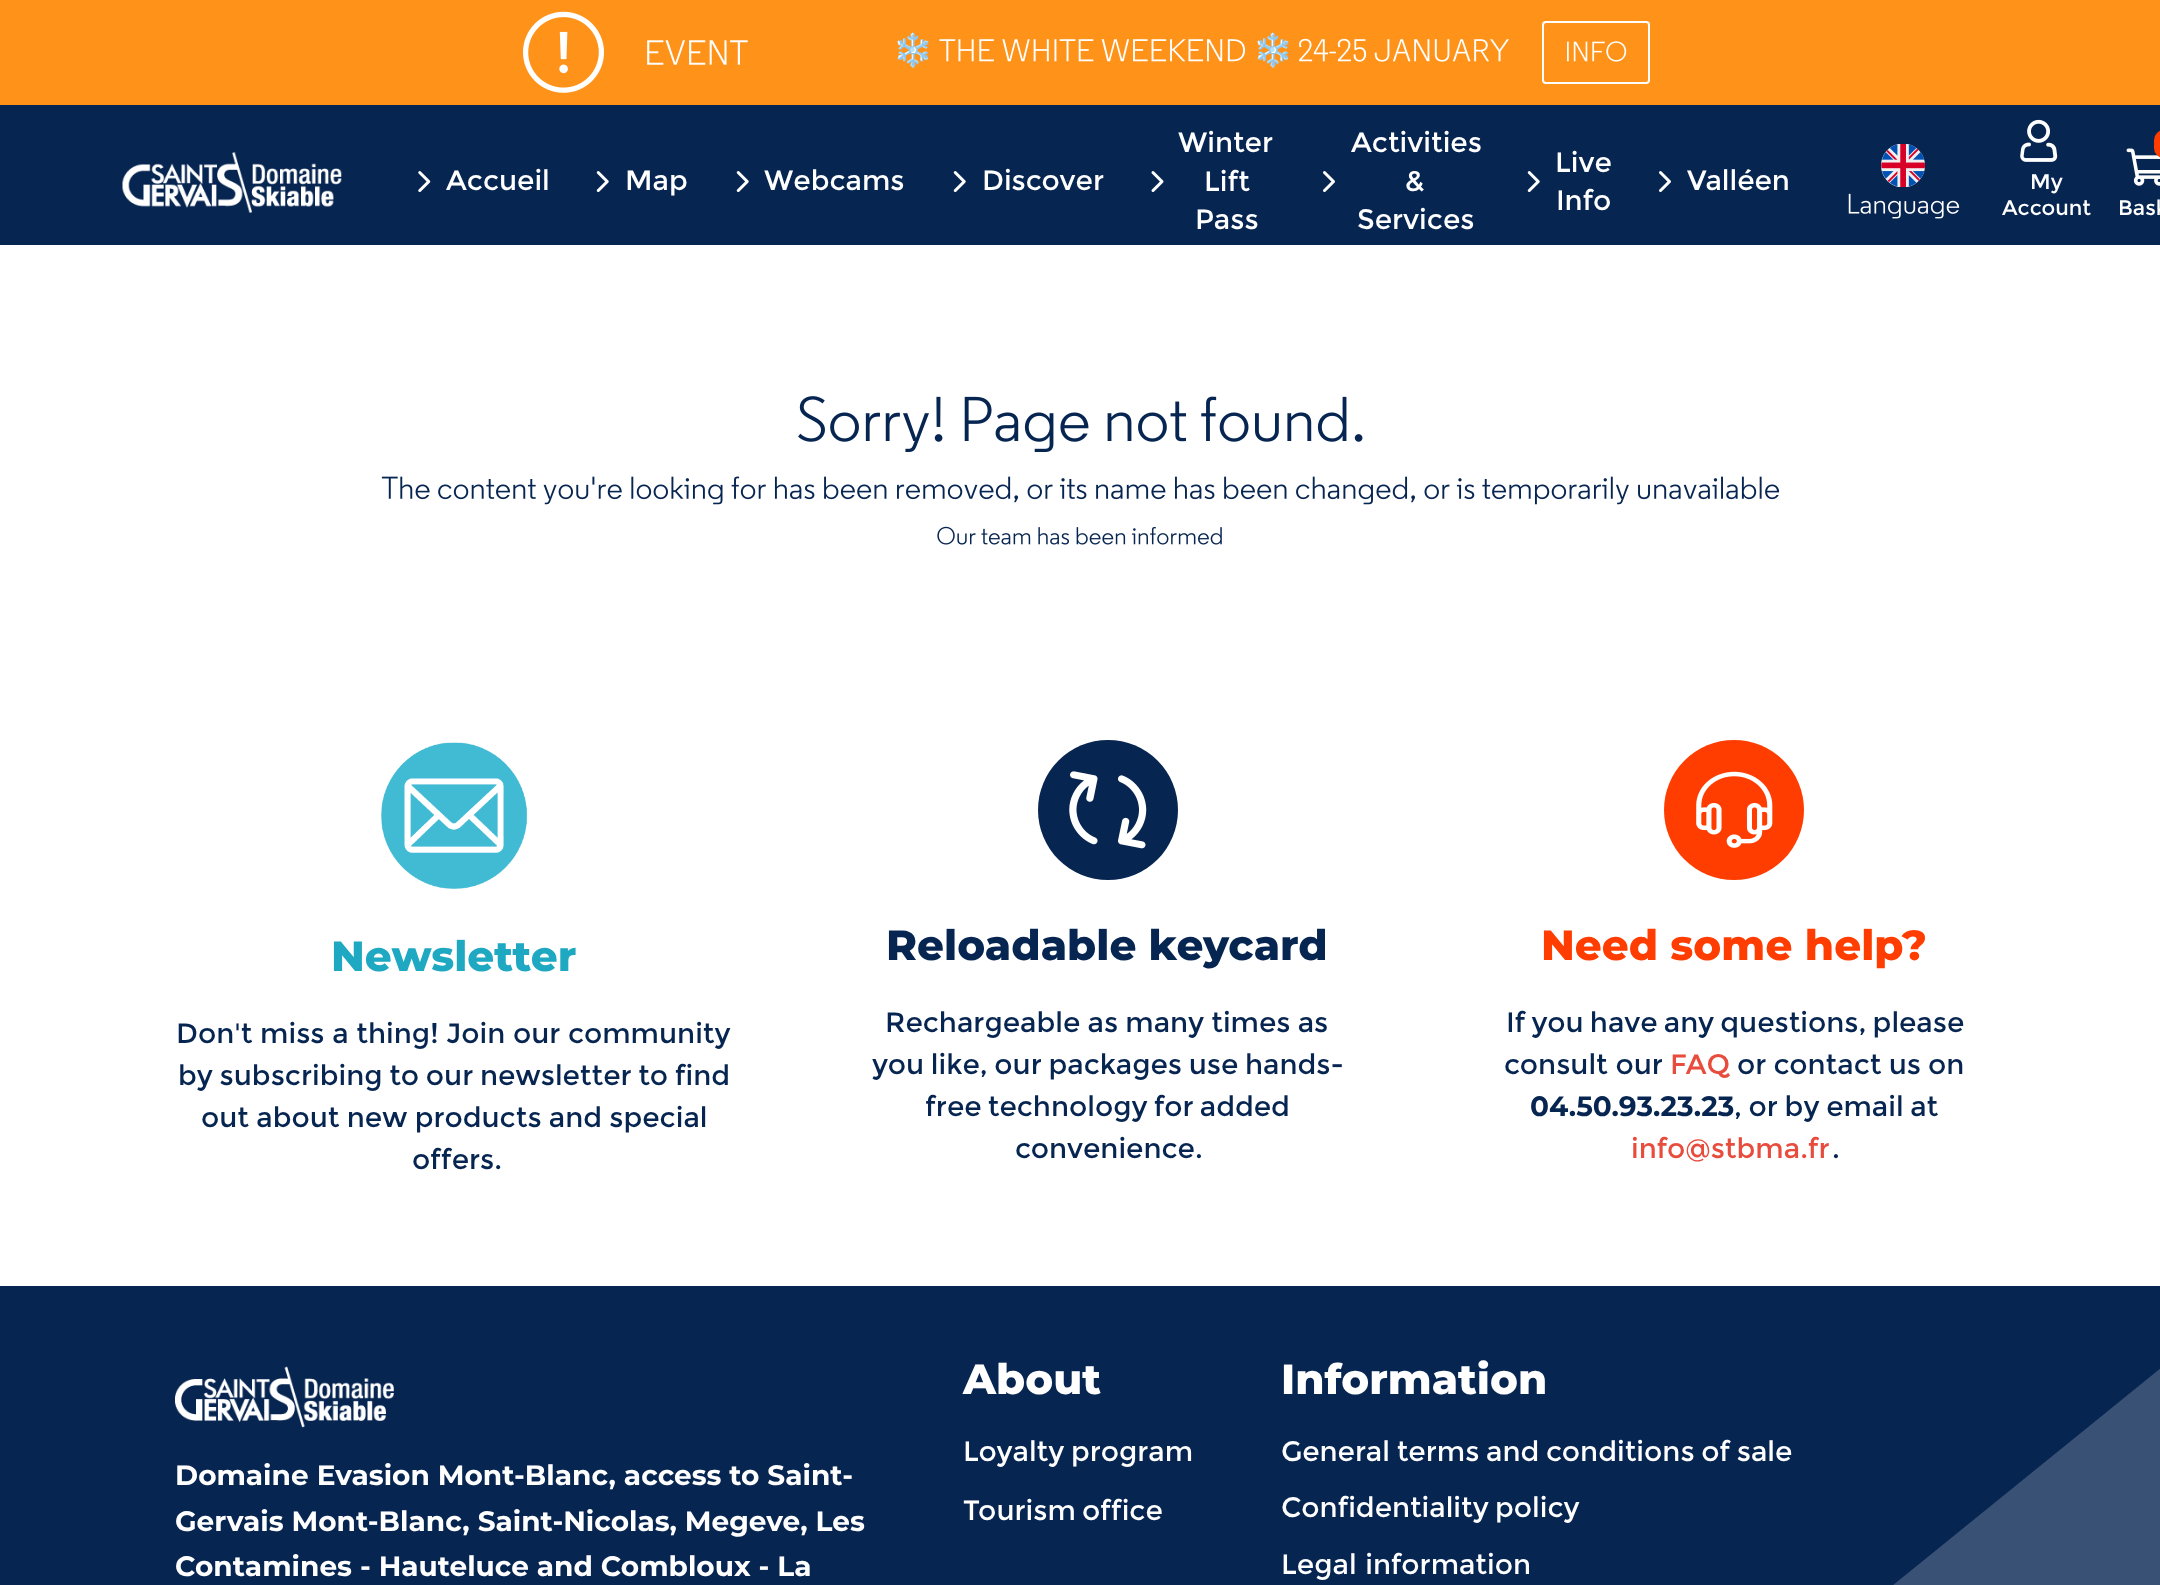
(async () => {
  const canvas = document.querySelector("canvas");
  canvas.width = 2160;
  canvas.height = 1585;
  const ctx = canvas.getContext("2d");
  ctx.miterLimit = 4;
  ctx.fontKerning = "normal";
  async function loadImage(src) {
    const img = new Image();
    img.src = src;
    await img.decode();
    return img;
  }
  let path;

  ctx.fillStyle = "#ffffff";
  ctx.fillRect(0, 0, 2160, 1585);
  ctx.fillStyle = "#ff9219";
  ctx.fillRect(0, 0, 2160, 105);
  ctx.drawImage(await loadImage("img/1.png"), 523, 11, 81, 82);
  ctx.drawImage(await loadImage("img/2.png"), 647, 40, 101, 25);
  ctx.drawImage(await loadImage("img/3.png"), 939, 39, 307, 23);
  ctx.drawImage(await loadImage("img/4.png"), 1299, 38, 210, 24);
  ctx.beginPath();
  ctx.roundRect(1543, 22, 106, 61, 3);
  ctx.strokeStyle = "#ffffff";
  ctx.lineWidth = 2;
  ctx.stroke();
  ctx.drawImage(await loadImage("img/5.png"), 1567, 41, 60, 21);
  ctx.fillStyle = "#072551";
  ctx.fillRect(0, 105, 2160, 140);
  ctx.drawImage(await loadImage("img/6.png"), 122, 152, 220, 61);
  ctx.drawImage(await loadImage("img/7.png"), 418, 171, 13, 21);
  ctx.drawImage(await loadImage("img/8.png"), 596, 171, 13, 21);
  ctx.drawImage(await loadImage("img/8.png"), 736, 171, 13, 21);
  ctx.drawImage(await loadImage("img/8.png"), 953, 171, 13, 21);
  ctx.drawImage(await loadImage("img/9.png"), 1151, 171, 13, 21);
  ctx.drawImage(await loadImage("img/10.png"), 1323, 171, 12, 21);
  ctx.drawImage(await loadImage("img/8.png"), 1527, 171, 13, 21);
  ctx.drawImage(await loadImage("img/10.png"), 1659, 171, 12, 21);
  ctx.drawImage(await loadImage("img/11.png"), 1881, 144, 44, 43);
  ctx.drawImage(await loadImage("img/12.png"), 1848, 193, 112, 26);
  ctx.drawImage(await loadImage("img/13.png"), 2020, 119, 38, 43);
  ctx.drawImage(await loadImage("img/14.png"), 2126, 148, 34, 38);
  ctx.fillStyle = "#ff3d00";
  ctx.beginPath();
  ctx.roundRect(2154, 130, 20, 28, 14);
  ctx.fill();
  ctx.drawImage(await loadImage("img/15.png"), 798, 396, 565, 56);
  ctx.drawImage(await loadImage("img/16.png"), 381, 476, 1399, 29);
  ctx.drawImage(await loadImage("img/17.png"), 937, 526, 285, 19);
  ctx.drawImage(await loadImage("img/18.png"), 381, 742, 147, 147);
  ctx.fillStyle = "#072551";
  ctx.beginPath();
  ctx.arc(1108, 810, 70, 0, Math.PI * 2);
  ctx.fill();
  ctx.drawImage(await loadImage("img/19.png"), 1069, 771, 78, 78);
  ctx.fillStyle = "#ff3d00";
  ctx.beginPath();
  ctx.arc(1734, 810, 70, 0, Math.PI * 2);
  ctx.fill();
  ctx.drawImage(await loadImage("img/20.png"), 1696, 771, 77, 77);
  ctx.fillStyle = "#072551";
  ctx.fillRect(0, 1286, 2160, 299);
  ctx.fillStyle = "#395174";
  path = new Path2D("M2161 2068H1297L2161 1368Z");
  ctx.fill(path);
  ctx.drawImage(await loadImage("img/21.png"), 175, 1366, 219, 62);
  ctx.font = "32px Noto Color Emoji";
  ctx.fillStyle = "#ffffff";
  ctx.fillText("❄️", 893, 61);
  ctx.fillText("❄️", 1253, 61);
  ctx.font = "28px Montserrat";
  for (const [text, x, y] of [
    ["Accueil", 446, 190],
    ["Map", 625, 190],
    ["Webcams", 764, 190],
    ["Discover", 982, 190],
    ["Winter", 1178, 152],
    ["Lift", 1204, 191],
    ["Pass", 1195, 229],
    ["Activities", 1351, 152],
    ["&", 1405, 191],
    ["Services", 1357, 229],
    ["Live", 1555, 172],
    ["Info", 1556, 210],
    ["Valléen", 1687, 190],
  ]) {
    ctx.fillText(text, x, y);
  }
  ctx.font = "21px Montserrat";
  for (const [text, x, y] of [
    ["My", 2030, 189],
    ["Account", 2002, 215],
    ["Bask", 2118, 215],
  ]) {
    ctx.fillText(text, x, y);
  }
  ctx.font = "800 42px Montserrat";
  ctx.fillStyle = "#1ea8c2";
  ctx.fillText("Newsletter", 331, 971);
  ctx.font = "28px Montserrat";
  ctx.fillStyle = "#072551";
  ctx.fillText("Don't miss a thing! Join our community", 176, 1043);
  ctx.wordSpacing = "-1px";
  ctx.fillText("by subscribing to our newsletter to find", 178, 1085);
  ctx.wordSpacing = "-0.5px";
  ctx.fillText("out about new products and special", 201, 1127);
  ctx.wordSpacing = "0px";
  ctx.fillText("offers.", 412, 1169);
  ctx.font = "800 42px Montserrat";
  ctx.fillText("Reloadable keycard", 886, 960);
  ctx.wordSpacing = "-0.5px";
  ctx.font = "28px Montserrat";
  ctx.fillText("Rechargeable as many times as", 885, 1032);
  ctx.wordSpacing = "-1px";
  ctx.fillText("you like, our packages use hands-", 872, 1074);
  ctx.wordSpacing = "-1.5px";
  ctx.fillText("free technology for added", 925, 1116);
  ctx.wordSpacing = "0px";
  ctx.fillText("convenience.", 1015, 1158);
  ctx.font = "800 42px Montserrat";
  ctx.fillStyle = "#ff3d00";
  ctx.fillText("Need some help?", 1541, 960);
  ctx.wordSpacing = "-1.5px";
  ctx.font = "28px Montserrat";
  ctx.fillStyle = "#072551";
  ctx.fillText("If you have any questions, please", 1506, 1032);
  ctx.wordSpacing = "0px";
  ctx.fillText("consult our", 1504, 1074);
  ctx.fillStyle = "#e74c3c";
  ctx.fillText("FAQ", 1670, 1074);
  ctx.wordSpacing = "-0.5px";
  ctx.fillStyle = "#072551";
  ctx.fillText("or contact us on", 1737, 1074);
  ctx.wordSpacing = "0px";
  ctx.font = "bold 28px Montserrat";
  ctx.fillText("04.50.93.23.23", 1530, 1116);
  ctx.wordSpacing = "-1px";
  ctx.font = "28px Montserrat";
  ctx.fillText(", or by email at", 1734, 1116);
  ctx.wordSpacing = "0px";
  ctx.fillStyle = "#e74c3c";
  ctx.fillText("info@stbma.fr", 1631, 1158);
  ctx.fillStyle = "#072551";
  ctx.fillText(".", 1832, 1158);
  ctx.font = "bold 28px Montserrat";
  ctx.fillStyle = "#ffffff";
  for (const [text, x, y] of [
    ["Domaine Evasion Mont-Blanc, access to Saint-", 175, 1485],
    ["Gervais Mont-Blanc, Saint-Nicolas, Megeve, Les", 175, 1531],
    ["Contamines - Hauteluce and Combloux - La", 175, 1576],
  ]) {
    ctx.fillText(text, x, y);
  }
  ctx.font = "800 42px Montserrat";
  ctx.fillText("About", 963, 1394);
  ctx.wordSpacing = "-1px";
  ctx.font = "28px Montserrat";
  ctx.fillText("Loyalty program", 963, 1461);
  ctx.wordSpacing = "-1.5px";
  ctx.fillText("Tourism office", 963, 1520);
  ctx.wordSpacing = "0px";
  ctx.font = "800 42px Montserrat";
  ctx.fillText("Information", 1281, 1394);
  ctx.wordSpacing = "-1px";
  ctx.font = "28px Montserrat";
  ctx.fillText("General terms and conditions of sale", 1281, 1461);
  ctx.wordSpacing = "-1.5px";
  ctx.fillText("Confidentiality policy", 1281, 1517);
  ctx.wordSpacing = "1px";
  ctx.fillText("Legal information", 1281, 1574);
})();
